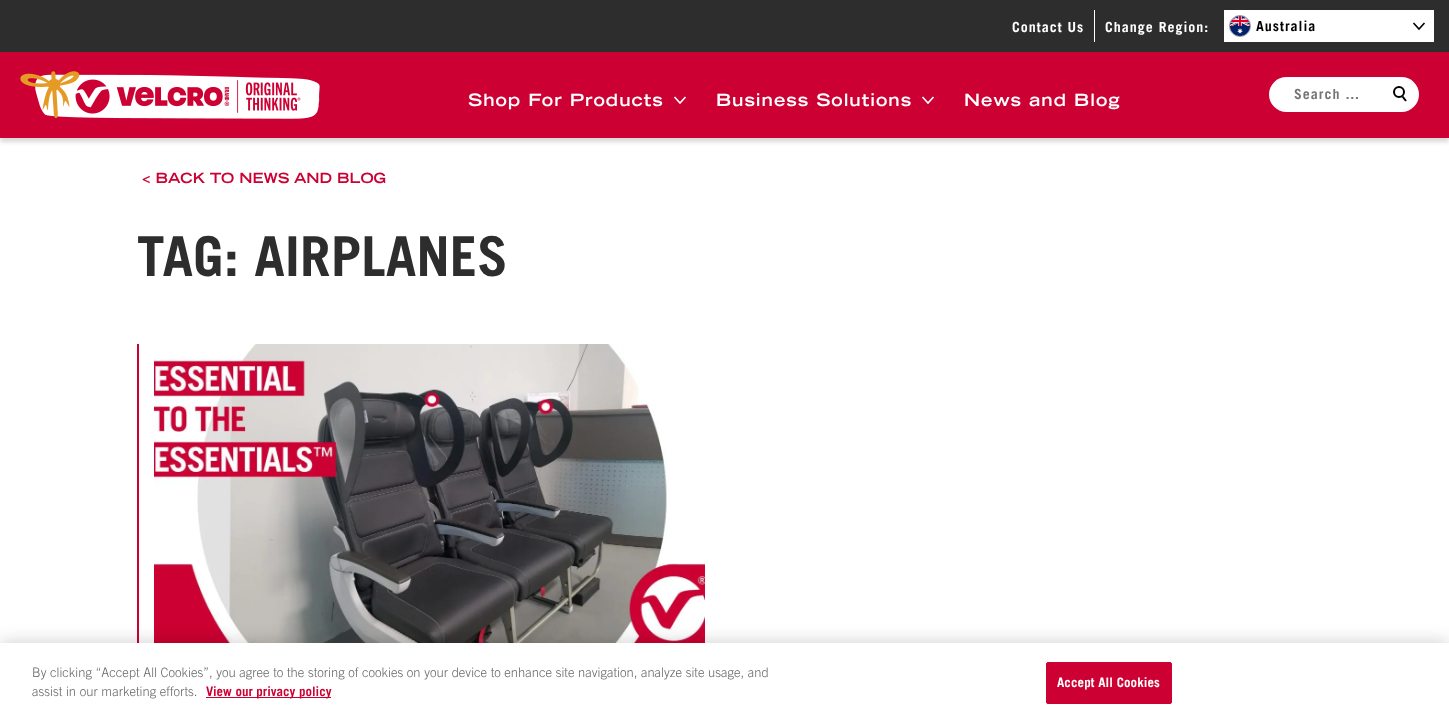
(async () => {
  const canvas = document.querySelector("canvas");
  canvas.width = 1449;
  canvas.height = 725;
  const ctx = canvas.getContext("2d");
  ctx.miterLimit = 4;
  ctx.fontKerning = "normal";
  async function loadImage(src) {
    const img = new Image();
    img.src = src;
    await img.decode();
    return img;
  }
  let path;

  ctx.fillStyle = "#ffffff";
  ctx.fillRect(0, 0, 1449, 725);
  ctx.fillStyle = "rgba(0, 0, 0, 0.15)";
  ctx.filter = "blur(2px)";
  ctx.beginPath();
  ctx.rect(0, 4, 1449, 138);
  ctx.fill();
  ctx.filter = "none";
  for (const [x, y, w, h, color] of [
    [0, 52, 1449, 86, "#cc0033"],
    [0, 0, 1449, 52, "#2d2d2d"],
    [1094, 10, 1, 32, "#ffffff"],
    [1224, 10, 210, 32, "#ffffff"],
  ]) {
    ctx.fillStyle = color;
    ctx.fillRect(x, y, w, h);
  }
  ctx.beginPath();
  ctx.arc(1240, 26, 10.5, 0, Math.PI * 2);
  ctx.strokeStyle = "#999999";
  ctx.stroke();
  ctx.drawImage(await loadImage("img/1.png"), 1230, 16, 20, 20);
  path = new Path2D("M1424.5 23L1419 29L1413.5 23");
  ctx.strokeStyle = "#000000";
  ctx.lineWidth = 1.6;
  ctx.stroke(path);
  ctx.drawImage(await loadImage("img/2.png"), 20, 71, 300, 48);
  path = new Path2D("M685.5 97L680 103L674.5 97");
  ctx.strokeStyle = "#ffffff";
  ctx.stroke(path);
  path = new Path2D("M933.5 97L928 103L922.5 97");
  ctx.stroke(path);
  ctx.beginPath();
  ctx.roundRect(1269, 77, 150, 35, 17.5);
  ctx.fill();
  ctx.beginPath();
  ctx.arc(1399, 92, 5, 0, Math.PI * 2);
  ctx.strokeStyle = "#000000";
  ctx.lineWidth = 2;
  ctx.stroke();
  path = new Path2D("M1402.5 96.5L1406 101");
  ctx.stroke(path);
  ctx.fillStyle = "#cc0033";
  ctx.fillRect(137, 344, 2, 299);
  ctx.drawImage(await loadImage("img/3.png"), 154, 344, 551, 299);
  ctx.fillStyle = "rgba(0, 0, 0, 0.2)";
  ctx.filter = "blur(9px)";
  ctx.beginPath();
  ctx.rect(0, 643, 1449, 82);
  ctx.fill();
  ctx.filter = "none";
  ctx.fillStyle = "#ffffff";
  ctx.fillRect(0, 643, 1449, 82);
  ctx.fillStyle = "#cc0033";
  ctx.fillRect(206, 697, 125, 1);
  ctx.beginPath();
  ctx.roundRect(1046.5, 662.5, 125, 41, 1.5);
  ctx.fill();
  ctx.strokeStyle = "#cc0033";
  ctx.lineWidth = 1;
  ctx.stroke();
  ctx.letterSpacing = "1px";
  ctx.font = "bold 14px Trade Gothic";
  ctx.fillStyle = "#ffffff";
  ctx.fillText("Contact Us", 1012, 32);
  ctx.fillText("Change Region:", 1105, 32);
  ctx.fillStyle = "#000000";
  ctx.fillText("Australia", 1256, 31);
  ctx.font = "bold 17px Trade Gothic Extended";
  ctx.fillStyle = "#ffffff";
  for (const [text, x, y] of [
    ["Shop For Products", 468, 106],
    ["Business Solutions", 716, 106],
    ["News and Blog", 964, 106],
  ]) {
    ctx.fillText(text, x, y);
  }
  ctx.font = "bold 14px Trade Gothic";
  ctx.fillStyle = "#757575";
  ctx.fillText("Search …", 1294, 99);
  ctx.letterSpacing = "0px";
  ctx.font = "bold 14px Trade Gothic Extended";
  ctx.fillStyle = "#cc0033";
  ctx.fillText("< BACK TO NEWS AND BLOG", 142, 183);
  ctx.font = "bold 55px Trade Gothic";
  ctx.fillStyle = "#2d2d2d";
  ctx.fillText("TAG: AIRPLANES", 137, 276);
  ctx.font = "300 13px Trade Gothic";
  ctx.fillStyle = "#696969";
  ctx.fillText("By clicking “Accept All Cookies”, you agree to the storing of cookies on your device to enhance site navigation, analyze site usage, and", 32, 677);
  ctx.fillText("assist in our marketing efforts.", 32, 696);
  ctx.font = "bold 13px Trade Gothic";
  ctx.fillStyle = "#cc0033";
  ctx.fillText("View our privacy policy", 206, 696);
  ctx.letterSpacing = "0.1px";
  ctx.fillStyle = "#ffffff";
  ctx.fillText("Accept All Cookies", 1057, 687);
})();
